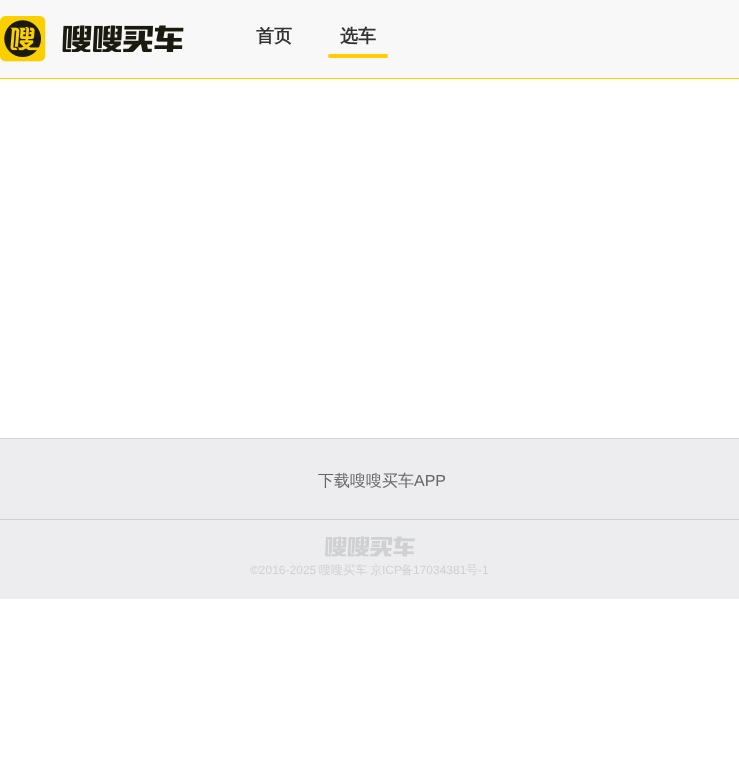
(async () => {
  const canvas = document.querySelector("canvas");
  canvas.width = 739;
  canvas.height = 758;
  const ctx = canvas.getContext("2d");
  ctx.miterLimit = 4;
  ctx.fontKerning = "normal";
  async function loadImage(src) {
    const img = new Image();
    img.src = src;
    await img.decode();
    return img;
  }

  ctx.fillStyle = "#ffffff";
  ctx.fillRect(0, 0, 739, 758);
  ctx.fillStyle = "#f8f8f8";
  ctx.fillRect(0, 0, 739, 78);
  ctx.fillStyle = "#fcd000";
  ctx.fillRect(0, 78, 739, 1);
  ctx.drawImage(await loadImage("img/1.png"), 0, 16, 184, 46);
  ctx.fillStyle = "#ffcd01";
  ctx.beginPath();
  ctx.roundRect(328, 54, 60, 4, 2);
  ctx.fill();
  for (const [x, y, w, h, color] of [
    [0, 439, 739, 160, "#ededf0"],
    [0, 438, 739, 1, "#cfd0d1"],
    [0, 519, 739, 1, "#cfd0d1"],
  ]) {
    ctx.fillStyle = color;
    ctx.fillRect(x, y, w, h);
  }
  ctx.drawImage(await loadImage("img/2.png"), 325, 536, 90, 21);
  ctx.font = "bold 18px WenQuanYi Zen Hei";
  ctx.fillStyle = "#333333";
  ctx.fillText("首页", 256, 42);
  ctx.fillText("选车", 340, 42);
  ctx.font = "500 16px WenQuanYi Zen Hei";
  ctx.fillStyle = "#666666";
  ctx.fillText("下载嗖嗖买车", 318, 486);
  ctx.font = "16px Liberation Sans";
  ctx.fillText("APP", 414, 486);
  ctx.font = "12px Liberation Sans";
  ctx.fillStyle = "#cfd0d1";
  ctx.fillText("©2016-2025", 250, 574);
  ctx.font = "500 12px WenQuanYi Zen Hei";
  ctx.fillText("嗖嗖买车 京", 319, 574);
  ctx.font = "12px Liberation Sans";
  ctx.fillText("ICP", 382, 574);
  ctx.font = "500 12px WenQuanYi Zen Hei";
  ctx.fillText("备", 401, 574);
  ctx.font = "12px Liberation Sans";
  ctx.fillText("17034381", 413, 574);
  ctx.font = "500 12px WenQuanYi Zen Hei";
  ctx.fillText("号", 466, 574);
  ctx.font = "12px Liberation Sans";
  ctx.fillText("-1", 478, 574);
})();
